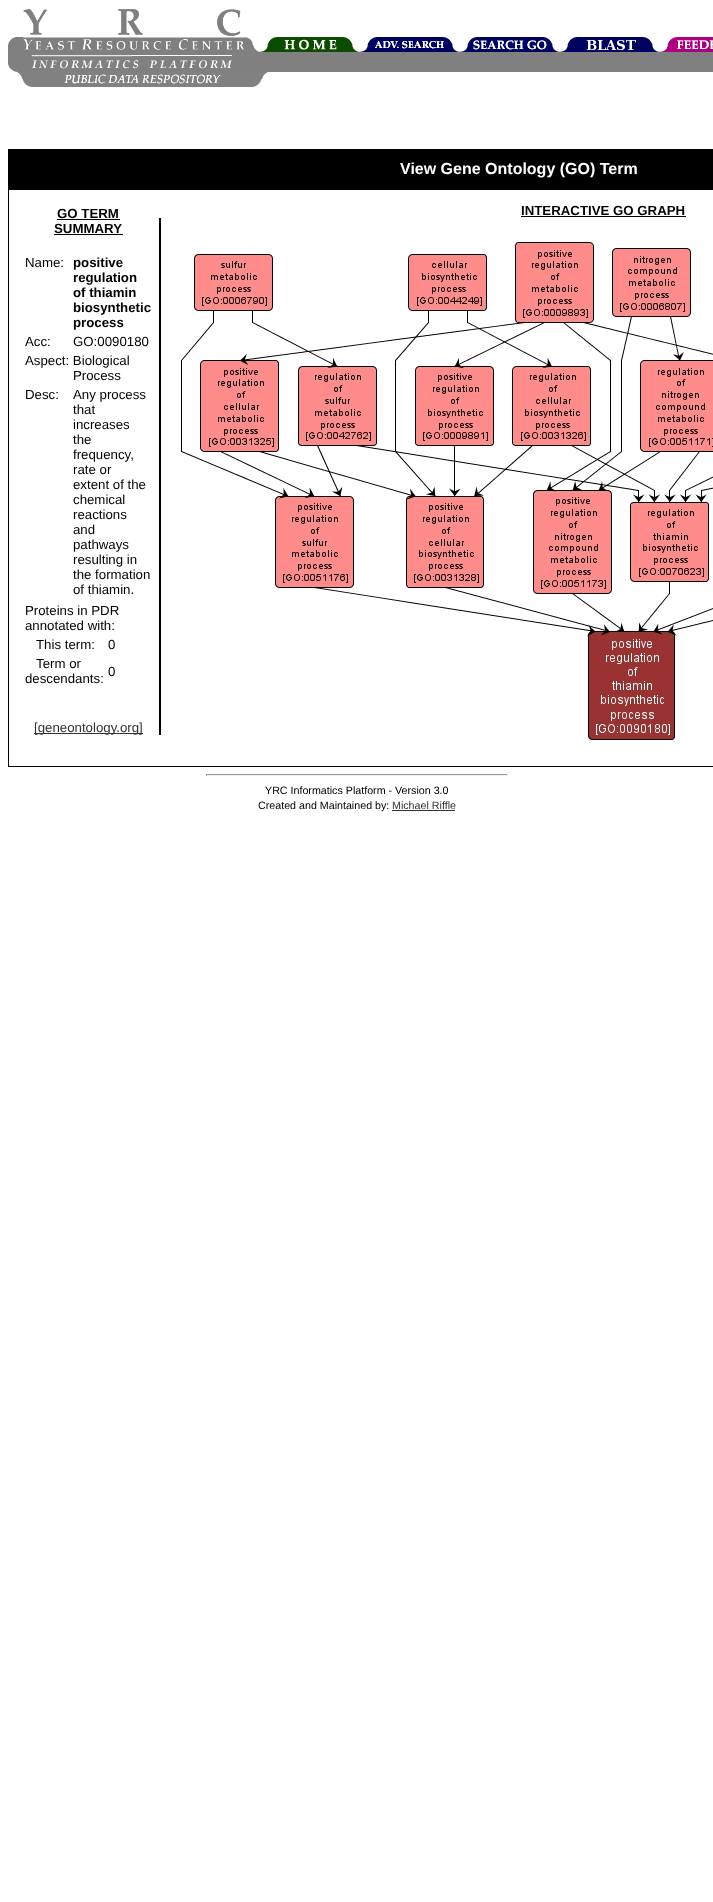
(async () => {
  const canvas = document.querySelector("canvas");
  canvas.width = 713;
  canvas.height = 1902;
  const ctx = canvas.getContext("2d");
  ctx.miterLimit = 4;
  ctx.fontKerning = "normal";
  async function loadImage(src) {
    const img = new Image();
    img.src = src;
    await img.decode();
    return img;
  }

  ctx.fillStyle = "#ffffff";
  ctx.fillRect(0, 0, 713, 1902);
  ctx.drawImage(await loadImage("img/1.png"), 8, 37, 15, 15);
  ctx.drawImage(await loadImage("img/2.png"), 23, 9, 222, 43);
  ctx.drawImage(await loadImage("img/3.png"), 245, 37, 15, 15);
  ctx.drawImage(await loadImage("img/4.png"), 260, 37, 100, 15);
  ctx.drawImage(await loadImage("img/5.png"), 360, 37, 100, 15);
  ctx.drawImage(await loadImage("img/6.png"), 460, 37, 100, 15);
  ctx.drawImage(await loadImage("img/7.png"), 560, 37, 100, 15);
  ctx.drawImage(await loadImage("img/8.png"), 660, 37, 53, 15);
  ctx.drawImage(await loadImage("img/9.png"), 8, 52, 15, 20);
  ctx.drawImage(await loadImage("img/10.png"), 23, 52, 221, 20);
  ctx.fillStyle = "#808080";
  ctx.fillRect(244, 52, 469, 20);
  ctx.drawImage(await loadImage("img/11.png"), 17, 72, 250, 15);
  ctx.fillStyle = "#000000";
  ctx.fillRect(8, 149, 705, 40);
  ctx.strokeStyle = "#000000";
  ctx.strokeRect(8.5, 189.5, 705, 577);
  for (const [x, y, w, h, color] of [
    [57, 219, 63, 1, "#000000"],
    [54, 234, 69, 1, "#000000"],
    [34, 733, 109, 1, "#323232"],
    [159, 218, 2, 517, "#000000"],
    [521, 216, 165, 1, "#000000"],
  ]) {
    ctx.fillStyle = color;
    ctx.fillRect(x, y, w, h);
  }
  ctx.drawImage(await loadImage("img/12.png"), 181, 242, 532, 498);
  for (const [x, y, w, h, color] of [
    [206, 774, 302, 1, "#9f9f9f"],
    [507, 774, 1, 2, "#eeeeee"],
    [206, 775, 302, 1, "#eeeeee"],
    [206, 774, 1, 2, "#9f9f9f"],
    [392, 810, 63, 1, "#323232"],
  ]) {
    ctx.fillStyle = color;
    ctx.fillRect(x, y, w, h);
  }
  ctx.font = "bold 16px Liberation Sans";
  ctx.fillStyle = "#ffffff";
  ctx.fillText("View Gene Ontology (GO) Term", 400, 174);
  ctx.font = "bold 13.25px Liberation Sans";
  ctx.fillStyle = "#000000";
  ctx.fillText("GO TERM", 57, 218);
  ctx.fillText("SUMMARY", 54, 233);
  ctx.font = "13.25px Liberation Sans";
  ctx.fillText("Name:", 25, 267);
  ctx.font = "bold 13.25px Liberation Sans";
  for (const [text, x, y] of [
    ["positive", 73, 267],
    ["regulation", 73, 282],
    ["of thiamin", 73, 297],
    ["biosynthetic", 73, 312],
    ["process", 73, 327],
  ]) {
    ctx.fillText(text, x, y);
  }
  ctx.font = "13.25px Liberation Sans";
  for (const [text, x, y] of [
    ["Acc:", 25, 346],
    ["GO:0090180", 73, 346],
    ["Aspect: Biological", 25, 365],
    ["Process", 73, 380],
    ["Desc:", 25, 399],
    ["Any process", 73, 399],
    ["that", 73, 414],
    ["increases", 73, 429],
    ["the", 73, 444],
    ["frequency,", 73, 459],
    ["rate or", 73, 474],
    ["extent of the", 73, 489],
    ["chemical", 73, 504],
    ["reactions", 73, 519],
    ["and", 73, 534],
    ["pathways", 73, 549],
    ["resulting in", 73, 564],
    ["the formation", 73, 579],
    ["of thiamin.", 73, 594],
    ["Proteins in PDR", 25, 615],
    ["annotated with:", 25, 630],
    ["This term:", 36, 649],
    ["0", 108, 649],
    ["Term or", 36, 668],
    ["descendants:", 25, 683],
    ["0", 108, 676],
  ]) {
    ctx.fillText(text, x, y);
  }
  ctx.fillStyle = "#323232";
  ctx.fillText("[geneontology.org]", 34, 732);
  ctx.font = "bold 13.25px Liberation Sans";
  ctx.fillStyle = "#000000";
  ctx.fillText("INTERACTIVE GO GRAPH", 521, 215);
  ctx.font = "10.7px Liberation Sans";
  ctx.fillText("YRC Informatics Platform - Version 3.0", 265, 794);
  ctx.fillText("Created and Maintained by:", 258, 809);
  ctx.fillStyle = "#323232";
  ctx.fillText("Michael Riffle", 392, 809);
})();
